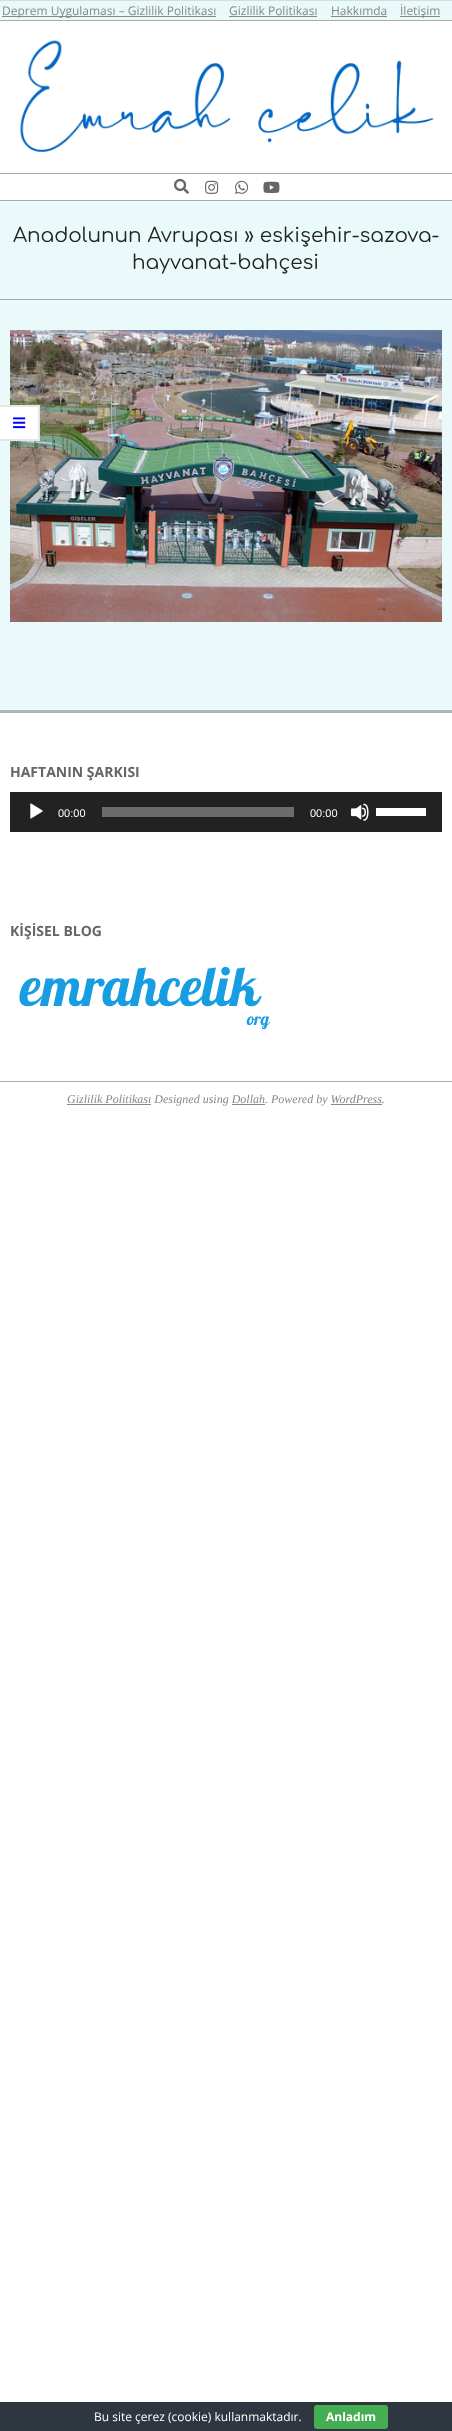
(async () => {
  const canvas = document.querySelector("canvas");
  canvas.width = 452;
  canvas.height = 2431;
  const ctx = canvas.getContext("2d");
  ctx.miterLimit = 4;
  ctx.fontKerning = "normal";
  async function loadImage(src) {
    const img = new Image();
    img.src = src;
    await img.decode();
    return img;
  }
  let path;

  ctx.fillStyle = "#ffffff";
  ctx.fillRect(0, 0, 452, 2431);
  for (const [x, y, w, h, color] of [
    [0, 1, 452, 19, "#eaf9f9"],
    [0, 20, 452, 1, "#aaaaaa"],
    [0, 0, 452, 1, "#d3e0e0"],
    [2, 16, 214, 1, "#888888"],
    [229, 16, 88, 1, "#888888"],
    [331, 16, 56, 1, "#888888"],
    [400, 16, 40, 1, "#888888"],
    [0, 200, 452, 1, "#aaaaaa"],
  ]) {
    ctx.fillStyle = color;
    ctx.fillRect(x, y, w, h);
  }
  ctx.drawImage(await loadImage("img/1.png"), 20, 40, 414, 113);
  ctx.fillRect(0, 173, 452, 1);
  ctx.drawImage(await loadImage("img/2.png"), 174, 178, 15, 16);
  ctx.drawImage(await loadImage("img/3.png"), 205, 180, 14, 14);
  ctx.drawImage(await loadImage("img/4.png"), 235, 180, 14, 14);
  ctx.drawImage(await loadImage("img/5.png"), 263, 181, 17, 12);
  ctx.fillStyle = "#eaf9f9";
  ctx.fillRect(0, 201, 452, 509);
  ctx.drawImage(await loadImage("img/7.png"), 10, 330, 432, 292);
  ctx.fillStyle = "#ffffff";
  ctx.fillRect(0, 405, 40, 36);
  ctx.fillStyle = "#e6e6e6";
  path = new Path2D("M0 405H40L38 407H0Z");
  ctx.fill(path);
  ctx.fillStyle = "rgba(0, 0, 0, 0.1)";
  path = new Path2D("M40 405V441L38 439V407Z");
  ctx.fill(path);
  path = new Path2D("M40 441H0V439H38Z");
  ctx.fill(path);
  ctx.drawImage(await loadImage("img/6.png"), 13, 417, 13, 12);
  for (const [x, y, w, h, color] of [
    [0, 299, 452, 1, "#aaaaaa"],
    [0, 710, 452, 3, "#b3b3b3"],
    [10, 792, 432, 40, "#222222"],
  ]) {
    ctx.fillStyle = color;
    ctx.fillRect(x, y, w, h);
  }
  ctx.drawImage(await loadImage("img/8.png"), 30, 803, 13, 16);
  ctx.fillStyle = "#6b6b6b";
  ctx.fillRect(102, 807, 192, 10);
  ctx.drawImage(await loadImage("img/9.png"), 351, 803, 18, 18);
  ctx.fillStyle = "#ffffff";
  ctx.fillRect(376, 808, 50, 8);
  ctx.drawImage(await loadImage("img/10.png"), 19, 966, 251, 64);
  for (const [x, y, w, h, color] of [
    [0, 1081, 452, 1, "#ababab"],
    [67, 1104, 84, 1, "#888888"],
    [232, 1104, 33, 1, "#888888"],
    [331, 1104, 51, 1, "#888888"],
    [0, 2402, 452, 29, "#2e363f"],
  ]) {
    ctx.fillStyle = color;
    ctx.fillRect(x, y, w, h);
  }
  ctx.fillStyle = "#45ae52";
  ctx.beginPath();
  ctx.roundRect(314, 2405, 74, 24, 3);
  ctx.fill();
  ctx.font = "12px Open Sans";
  ctx.fillStyle = "#888888";
  for (const [text, x, y] of [
    ["Deprem Uygulaması – Gizlilik Politikası", 2, 15],
    ["Gizlilik Politikası", 229, 15],
    ["Hakkımda", 331, 15],
    ["İletişim", 400, 15],
  ]) {
    ctx.fillText(text, x, y);
  }
  ctx.font = "20px Comfortaa";
  ctx.fillStyle = "#222222";
  ctx.fillText("Anadolunun Avrupası » eskişehir-sazova-", 13, 242);
  ctx.fillText("hayvanat-bahçesi", 132, 269);
  ctx.font = "bold 14px Open Sans";
  ctx.fillStyle = "#666666";
  ctx.fillText("HAFTANIN ŞARKISI", 10, 777);
  ctx.font = "11px Liberation Sans";
  ctx.fillStyle = "#ffffff";
  ctx.fillText("00:00", 58, 817);
  ctx.fillText("00:00", 310, 817);
  ctx.font = "bold 14px Open Sans";
  ctx.fillStyle = "#666666";
  ctx.fillText("KİŞİSEL BLOG", 10, 936);
  ctx.font = "italic 12px Liberation Serif";
  ctx.fillStyle = "#888888";
  ctx.fillText("Gizlilik Politikası Designed using Dollah. Powered by WordPress.", 67, 1103);
  ctx.font = "12px Open Sans";
  ctx.fillStyle = "#ffffff";
  ctx.fillText("Bu site çerez (cookie) kullanmaktadır.", 94, 2421);
  ctx.font = "bold 12px Open Sans";
  ctx.fillText("Anladım", 326, 2421);
})();
